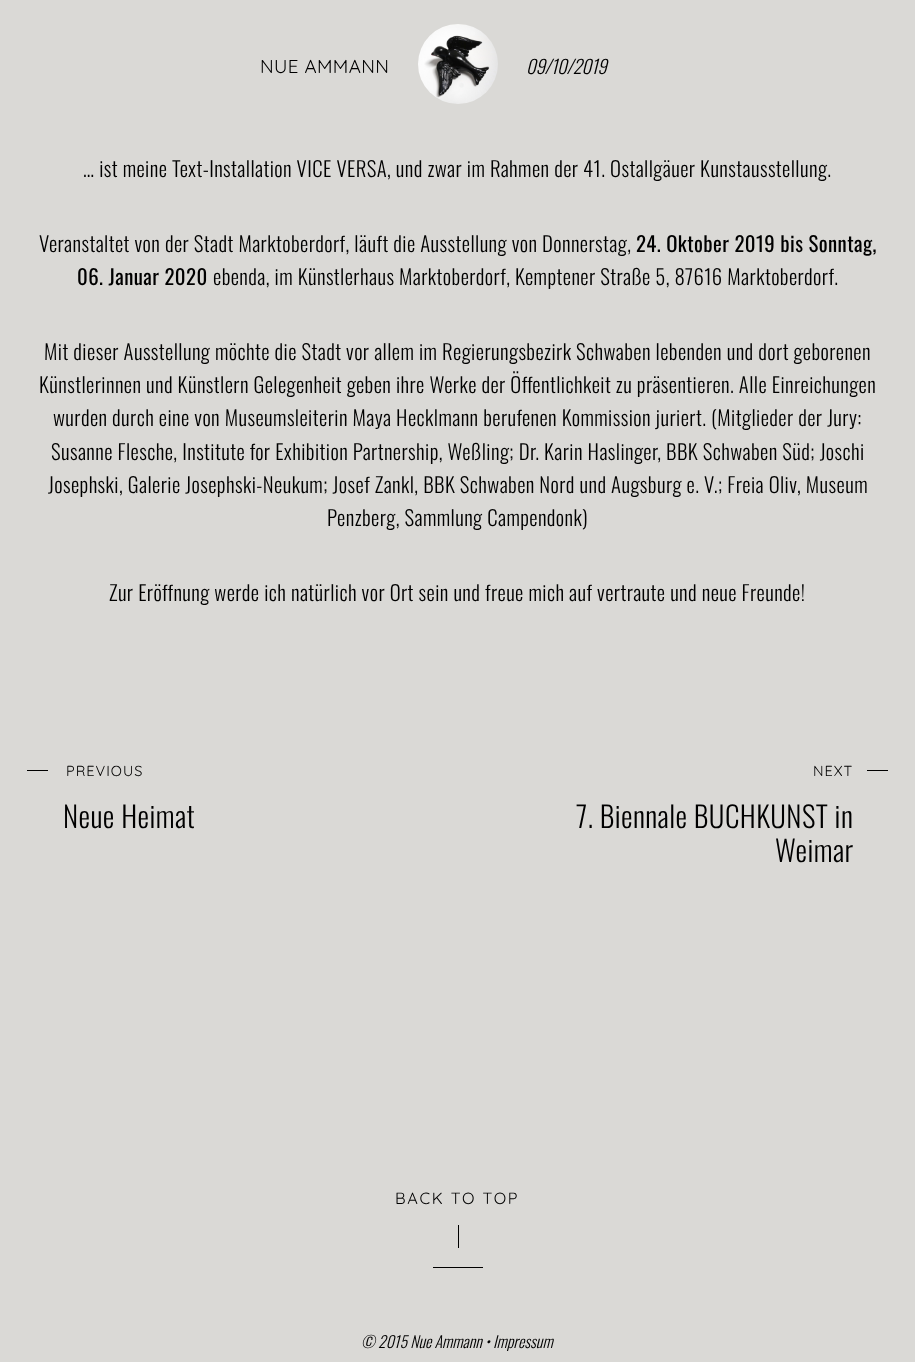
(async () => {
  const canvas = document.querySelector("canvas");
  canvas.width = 915;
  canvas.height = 1362;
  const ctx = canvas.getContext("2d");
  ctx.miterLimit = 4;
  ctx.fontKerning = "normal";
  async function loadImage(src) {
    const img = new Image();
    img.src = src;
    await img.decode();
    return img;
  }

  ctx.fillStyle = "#dad9d6";
  ctx.fillRect(0, 0, 915, 1362);
  ctx.drawImage(await loadImage("img/1.png"), 418, 24, 80, 80);
  for (const [x, y, w, h, color] of [
    [27, 770, 21, 1, "#000000"],
    [867, 770, 21, 1, "#000000"],
    [458, 1225, 1, 23, "#000000"],
    [433, 1267, 50, 1, "#000000"],
  ]) {
    ctx.fillStyle = color;
    ctx.fillRect(x, y, w, h);
  }
  ctx.letterSpacing = "0.4px";
  ctx.font = "18.75px Quicksand";
  ctx.fillText("NUE AMMANN", 260, 73);
  ctx.letterSpacing = "-0.25px";
  ctx.font = "italic 300 18.75px Oswald";
  ctx.fillText("09/10/2019", 526, 74);
  ctx.letterSpacing = "0.42px";
  ctx.font = "300 20.8px Oswald";
  ctx.fillText("… ist meine Text-Installation VICE VERSA, und zwar im Rahmen der 41. Ostallgäuer Kunstausstellung.", 83, 177);
  ctx.fillText("Veranstaltet von der Stadt Marktoberdorf, läuft die Ausstellung von Donnerstag,", 39, 252);
  ctx.font = "20.8px Oswald";
  ctx.fillText("24. Oktober 2019 bis Sonntag,", 636, 252);
  ctx.fillText("06. Januar 2020", 77, 285);
  ctx.font = "300 20.8px Oswald";
  for (const [text, x, y] of [
    ["ebenda, im Künstlerhaus Marktoberdorf, Kemptener Straße 5, 87616 Marktoberdorf.", 213, 285],
    ["Mit dieser Ausstellung möchte die Stadt vor allem im Regierungsbezirk Schwaben lebenden und dort geborenen", 44, 360],
    ["Künstlerinnen und Künstlern Gelegenheit geben ihre Werke der Öffentlichkeit zu präsentieren. Alle Einreichungen", 39, 393],
    ["wurden durch eine von Museumsleiterin Maya Hecklmann berufenen Kommission juriert. (Mitglieder der Jury:", 53, 426],
    ["Susanne Flesche, Institute for Exhibition Partnership, Weßling; Dr. Karin Haslinger, BBK Schwaben Süd; Joschi", 51, 460],
    ["Josephski, Galerie Josephski-Neukum; Josef Zankl, BBK Schwaben Nord und Augsburg e. V.; Freia Oliv, Museum", 48, 493],
    ["Penzberg, Sammlung Campendonk)", 327, 526],
    ["Zur Eröffnung werde ich natürlich vor Ort sein und freue mich auf vertraute und neue Freunde!", 109, 601],
  ]) {
    ctx.fillText(text, x, y);
  }
  ctx.letterSpacing = "1px";
  ctx.font = "14.5px Quicksand";
  ctx.fillText("PREVIOUS", 66, 776);
  ctx.letterSpacing = "0.42px";
  ctx.font = "300 29.1px Oswald";
  ctx.fillText("Neue Heimat", 63, 828);
  ctx.letterSpacing = "1px";
  ctx.font = "14.5px Quicksand";
  ctx.fillText("NEXT", 813, 776);
  ctx.letterSpacing = "0.42px";
  ctx.font = "300 29.1px Oswald";
  ctx.fillText("7. Biennale BUCHKUNST in", 576, 828);
  ctx.fillText("Weimar", 775, 862);
  ctx.letterSpacing = "1.75px";
  ctx.font = "16.25px Quicksand";
  ctx.fillText("BACK TO TOP", 395, 1204);
  ctx.letterSpacing = "0px";
  ctx.font = "italic 300 15.9px Oswald";
  ctx.fillText("© 2015 Nue Ammann • Impressum", 361, 1348);
})();
